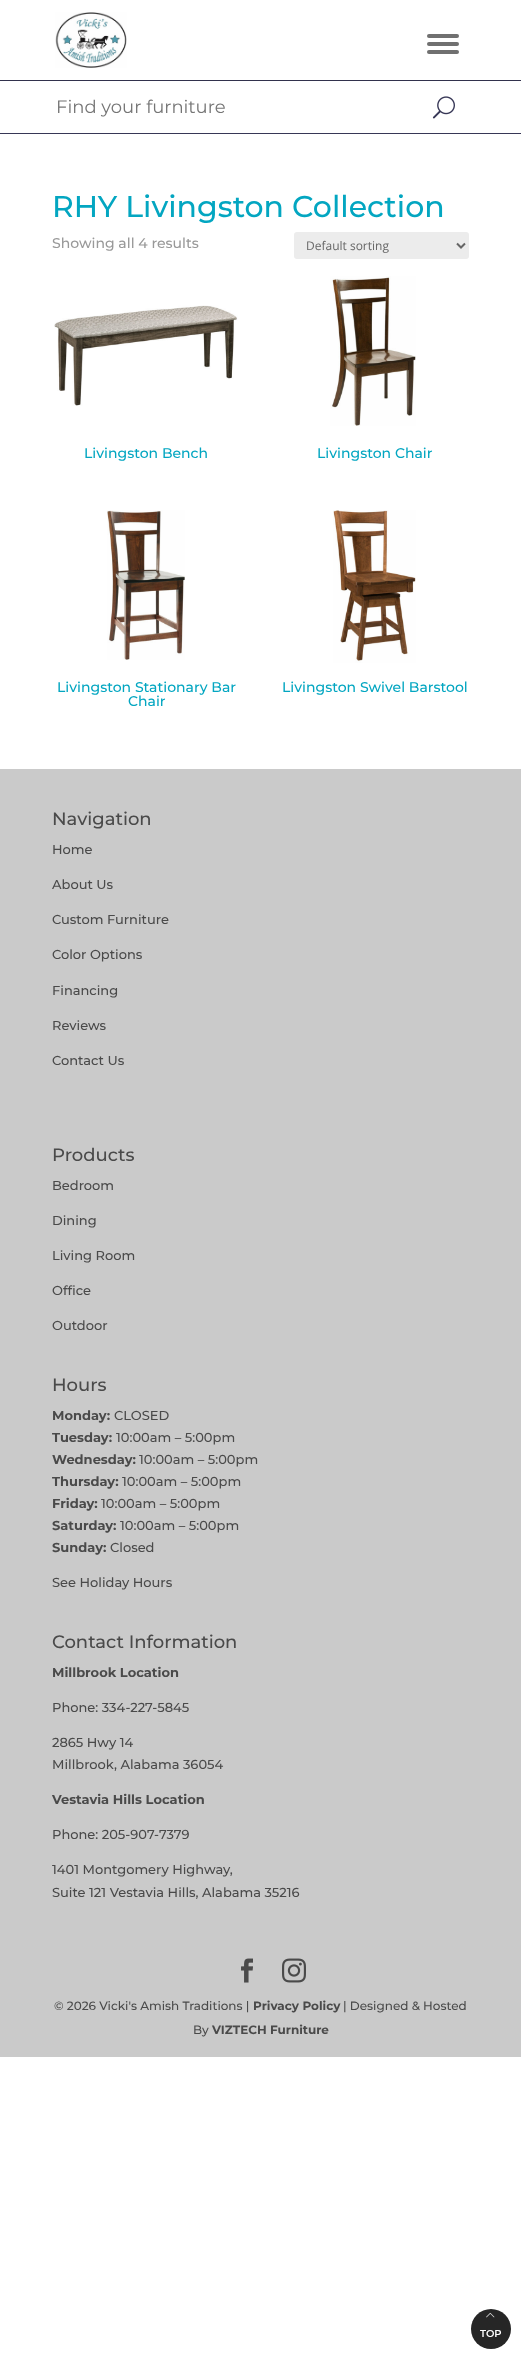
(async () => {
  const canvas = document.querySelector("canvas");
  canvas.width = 521;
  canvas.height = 2359;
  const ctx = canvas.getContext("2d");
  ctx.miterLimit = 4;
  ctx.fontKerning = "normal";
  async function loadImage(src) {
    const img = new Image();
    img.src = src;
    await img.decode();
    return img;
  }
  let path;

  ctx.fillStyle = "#ffffff";
  ctx.fillRect(0, 0, 521, 2359);
  ctx.fillStyle = "#32324d";
  ctx.fillRect(0, 80, 521, 1);
  ctx.drawImage(await loadImage("img/1.png"), 55, 12, 72, 56);
  ctx.fillStyle = "#707070";
  ctx.beginPath();
  ctx.roundRect(427, 34, 32, 4, 2);
  ctx.fill();
  ctx.beginPath();
  ctx.roundRect(427, 42, 32, 4, 2);
  ctx.fill();
  ctx.beginPath();
  ctx.roundRect(427, 50, 32, 4, 2);
  ctx.fill();
  ctx.fillStyle = "#373756";
  ctx.fillRect(0, 133, 521, 1);
  ctx.drawImage(await loadImage("img/2.png"), 432, 96, 23, 23);
  ctx.fillStyle = "#ececec";
  ctx.beginPath();
  ctx.roundRect(294, 232, 175, 27, 3);
  ctx.fill();
  path = new Path2D("M457 243.5L461 247.5L465 243.5");
  ctx.strokeStyle = "#666666";
  ctx.lineWidth = 2;
  ctx.stroke(path);
  ctx.drawImage(await loadImage("img/3.png"), 54, 305, 184, 101);
  ctx.drawImage(await loadImage("img/4.png"), 330, 276, 86, 150);
  ctx.drawImage(await loadImage("img/5.png"), 107, 510, 78, 150);
  ctx.drawImage(await loadImage("img/6.png"), 333, 510, 83, 153);
  ctx.fillStyle = "#cacaca";
  ctx.fillRect(0, 769, 521, 1288);
  ctx.drawImage(await loadImage("img/7.png"), 241, 1958, 12, 25);
  ctx.drawImage(await loadImage("img/8.png"), 282, 1958, 24, 25);
  ctx.fillStyle = "#262626";
  ctx.beginPath();
  ctx.arc(491, 2329, 20, 0, Math.PI * 2);
  ctx.fill();
  ctx.drawImage(await loadImage("img/9.png"), 486, 2312, 9, 6);
  ctx.font = "100 18px Montserrat";
  ctx.fillStyle = "#757575";
  ctx.fillText("Find your furniture", 56, 113);
  ctx.font = "100 30px 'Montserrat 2'";
  ctx.fillStyle = "#03a6c1";
  ctx.fillText("RHY Livingston Collection", 52, 217);
  ctx.font = "100 14px 'Montserrat 2'";
  ctx.fillStyle = "#999999";
  ctx.fillText("Showing all 4 results", 52, 248);
  ctx.font = "12px Open Sans";
  ctx.fillStyle = "#666666";
  ctx.fillText("Default sorting", 306, 250);
  ctx.font = "100 14px 'Montserrat 2'";
  ctx.fillStyle = "#03a6c1";
  for (const [text, x, y] of [
    ["Livingston Bench", 84, 458],
    ["Livingston Chair", 317, 458],
    ["Livingston Stationary Bar", 57, 692],
    ["Chair", 128, 706],
    ["Livingston Swivel Barstool", 282, 692],
  ]) {
    ctx.fillText(text, x, y);
  }
  ctx.font = "100 18px 'Montserrat 2'";
  ctx.fillStyle = "#4a4a4a";
  ctx.fillText("Navigation", 52, 825);
  ctx.font = "100 13px 'Montserrat 2'";
  for (const [text, x, y] of [
    ["Home", 52, 854],
    ["About Us", 52, 889],
    ["Custom Furniture", 52, 924],
    ["Color Options", 52, 959],
    ["Financing", 52, 995],
    ["Reviews", 52, 1030],
    ["Contact Us", 52, 1065],
  ]) {
    ctx.fillText(text, x, y);
  }
  ctx.font = "100 18px 'Montserrat 2'";
  ctx.fillText("Products", 52, 1161);
  ctx.font = "100 13px 'Montserrat 2'";
  for (const [text, x, y] of [
    ["Bedroom", 52, 1190],
    ["Dining", 52, 1225],
    ["Living Room", 52, 1260],
    ["Office", 52, 1295],
    ["Outdoor", 52, 1330],
  ]) {
    ctx.fillText(text, x, y);
  }
  ctx.font = "100 18px 'Montserrat 2'";
  ctx.fillText("Hours", 52, 1391);
  ctx.font = "100 13px 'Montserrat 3'";
  ctx.fillText("Monday:", 52, 1420);
  ctx.font = "100 13px 'Montserrat 2'";
  ctx.fillText("CLOSED", 114, 1420);
  ctx.font = "100 13px 'Montserrat 3'";
  ctx.fillText("Tuesday:", 52, 1442);
  ctx.font = "100 13px 'Montserrat 2'";
  ctx.fillText("10:00am – 5:00pm", 116, 1442);
  ctx.font = "100 13px 'Montserrat 3'";
  ctx.fillText("Wednesday:", 52, 1464);
  ctx.font = "100 13px 'Montserrat 2'";
  ctx.fillText("10:00am – 5:00pm", 139, 1464);
  ctx.font = "100 13px 'Montserrat 3'";
  ctx.fillText("Thursday:", 52, 1486);
  ctx.font = "100 13px 'Montserrat 2'";
  ctx.fillText("10:00am – 5:00pm", 122, 1486);
  ctx.font = "100 13px 'Montserrat 3'";
  ctx.fillText("Friday:", 52, 1508);
  ctx.font = "100 13px 'Montserrat 2'";
  ctx.fillText("10:00am – 5:00pm", 101, 1508);
  ctx.font = "100 13px 'Montserrat 3'";
  ctx.fillText("Saturday:", 52, 1530);
  ctx.font = "100 13px 'Montserrat 2'";
  ctx.fillText("10:00am – 5:00pm", 120, 1530);
  ctx.font = "100 13px 'Montserrat 3'";
  ctx.fillText("Sunday:", 52, 1552);
  ctx.font = "100 13px 'Montserrat 2'";
  ctx.fillText("Closed", 110, 1552);
  ctx.fillText("See Holiday Hours", 52, 1587);
  ctx.font = "100 18px 'Montserrat 2'";
  ctx.fillText("Contact Information", 52, 1648);
  ctx.font = "100 13px 'Montserrat 3'";
  ctx.fillText("Millbrook Location", 52, 1677);
  ctx.font = "100 13px 'Montserrat 2'";
  for (const [text, x, y] of [
    ["Phone: 334-227-5845", 52, 1712],
    ["2865 Hwy 14", 52, 1747],
    ["Millbrook, Alabama 36054", 52, 1769],
  ]) {
    ctx.fillText(text, x, y);
  }
  ctx.font = "100 13px 'Montserrat 3'";
  ctx.fillText("Vestavia Hills Location", 52, 1804);
  ctx.font = "100 13px 'Montserrat 2'";
  for (const [text, x, y] of [
    ["Phone: 205-907-7379", 52, 1839],
    ["1401 Montgomery Highway,", 52, 1874],
    ["Suite 121 Vestavia Hills, Alabama 35216", 52, 1897],
  ]) {
    ctx.fillText(text, x, y);
  }
  ctx.font = "100 12px 'Montserrat 2'";
  ctx.fillText("© 2026 Vicki's Amish Traditions |", 54, 2010);
  ctx.font = "100 12px 'Montserrat 3'";
  ctx.fillText("Privacy Policy", 253, 2010);
  ctx.font = "100 12px 'Montserrat 2'";
  ctx.fillText("| Designed & Hosted", 343, 2010);
  ctx.fillText("By", 193, 2034);
  ctx.font = "100 12px 'Montserrat 3'";
  ctx.fillText("VIZTECH Furniture", 212, 2034);
  ctx.font = "100 10px 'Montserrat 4'";
  ctx.fillStyle = "#ffffff";
  ctx.fillText("TOP", 480, 2337);
})();
